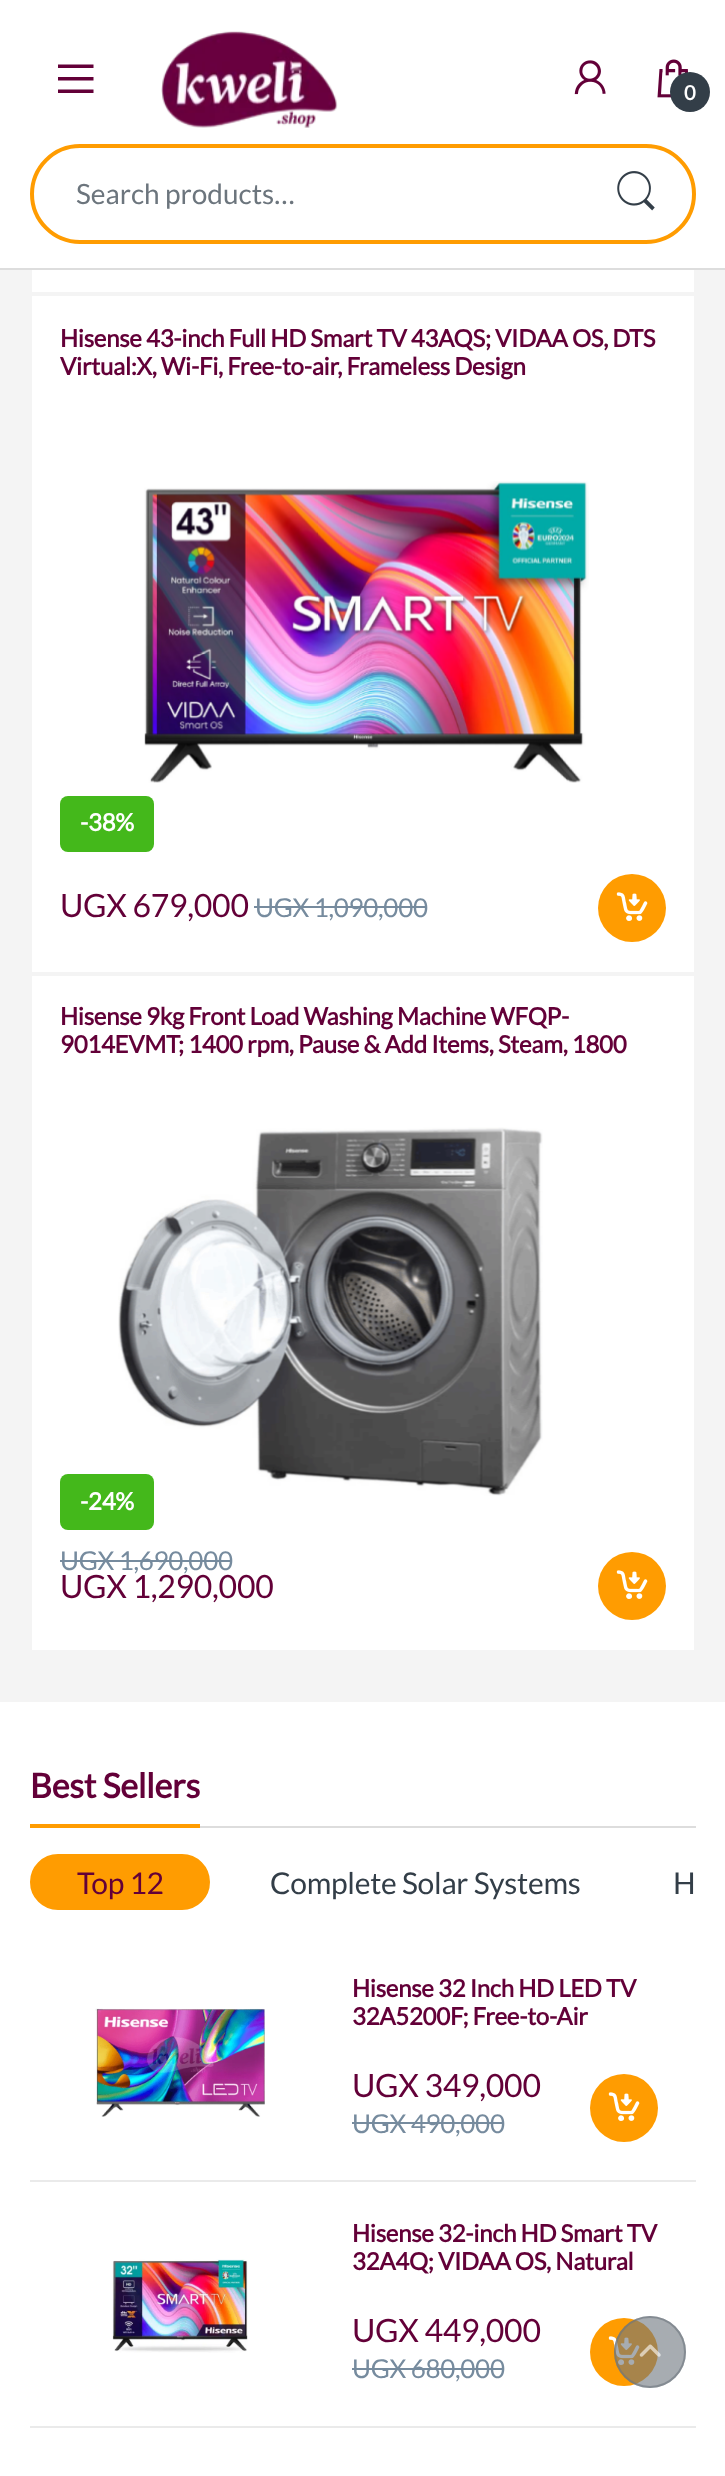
(async () => {
  const canvas = document.querySelector("canvas");
  canvas.width = 725;
  canvas.height = 2476;
  const ctx = canvas.getContext("2d");
  ctx.miterLimit = 4;
  ctx.fontKerning = "normal";
  async function loadImage(src) {
    const img = new Image();
    img.src = src;
    await img.decode();
    return img;
  }
  let path;

  ctx.fillStyle = "#ffffff";
  ctx.fillRect(0, 0, 725, 2476);
  ctx.fillStyle = "#f4f4f4";
  ctx.fillRect(0, 270, 725, 1432);
  ctx.fillStyle = "#ffffff";
  ctx.fillRect(32, 270, 662, 22);
  ctx.strokeStyle = "#f4f4f4";
  ctx.lineWidth = 2;
  ctx.strokeRect(31, -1, 664, 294);
  ctx.fillRect(30, 0, 666, 268);
  ctx.fillStyle = "#dddddd";
  ctx.fillRect(0, 268, 725, 2);
  ctx.fillStyle = "#630038";
  path = new Path2D("M58 93V89.5H93.5V93ZM58 77H93.5V80.5H58ZM58 64.5H93.5V68H58Z");
  ctx.fill(path);
  ctx.drawImage(await loadImage("img/1.png"), 161, 31, 177, 97);
  ctx.drawImage(await loadImage("img/2.png"), 574, 60, 32, 35);
  ctx.drawImage(await loadImage("img/3.png"), 657, 59, 32, 39);
  ctx.fillStyle = "#333e48";
  ctx.beginPath();
  ctx.arc(690, 92, 20, 0, Math.PI * 2);
  ctx.fill();
  ctx.beginPath();
  ctx.roundRect(32, 146, 662, 96, 48);
  ctx.strokeStyle = "#ff9c01";
  ctx.lineWidth = 4;
  ctx.stroke();
  ctx.drawImage(await loadImage("img/4.png"), 617, 171, 38, 40);
  ctx.fillStyle = "#ffffff";
  ctx.fillRect(32, 296, 662, 676);
  ctx.drawImage(await loadImage("img/5.png"), 144, 481, 445, 302);
  ctx.fillStyle = "#44b81b";
  ctx.beginPath();
  ctx.roundRect(60, 796, 94, 56, 8);
  ctx.fill();
  ctx.fillStyle = "#768b9e";
  ctx.fillRect(254, 906, 172, 2);
  ctx.fillStyle = "#ff9c01";
  ctx.beginPath();
  ctx.arc(632, 908, 34, 0, Math.PI * 2);
  ctx.fill();
  ctx.drawImage(await loadImage("img/6.png"), 616, 892, 32, 29);
  ctx.fillStyle = "#ffffff";
  ctx.fillRect(32, 976, 662, 674);
  ctx.drawImage(await loadImage("img/7.png"), 118, 1127, 425, 369);
  ctx.fillStyle = "#44b81b";
  ctx.beginPath();
  ctx.roundRect(60, 1474, 94, 56, 8);
  ctx.fill();
  ctx.fillStyle = "#768b9e";
  ctx.fillRect(60, 1560, 172, 2);
  ctx.fillStyle = "#ff9c01";
  ctx.beginPath();
  ctx.arc(632, 1586, 34, 0, Math.PI * 2);
  ctx.fill();
  ctx.drawImage(await loadImage("img/6.png"), 616, 1570, 32, 29);
  ctx.fillRect(30, 1824, 170, 4);
  ctx.fillStyle = "#dddddd";
  ctx.fillRect(200, 1826, 496, 2);
  ctx.fillStyle = "#ff9c01";
  ctx.beginPath();
  ctx.roundRect(32, 1856, 176, 52, 26);
  ctx.fill();
  ctx.stroke();
  ctx.fillStyle = "#eaeaea";
  ctx.fillRect(30, 2180, 666, 2);
  ctx.drawImage(await loadImage("img/8.png"), 95, 2008, 170, 109);
  ctx.fillStyle = "#768b9e";
  ctx.fillRect(352, 2122, 152, 2);
  ctx.fillStyle = "#ff9c01";
  ctx.beginPath();
  ctx.arc(624, 2108, 34, 0, Math.PI * 2);
  ctx.fill();
  ctx.drawImage(await loadImage("img/6.png"), 608, 2092, 32, 29);
  ctx.fillStyle = "#eaeaea";
  ctx.fillRect(30, 2426, 666, 2);
  ctx.drawImage(await loadImage("img/9.png"), 112, 2259, 136, 94);
  ctx.fillStyle = "#768b9e";
  ctx.fillRect(352, 2368, 152, 2);
  ctx.fillStyle = "#ff9c01";
  ctx.beginPath();
  ctx.arc(624, 2352, 34, 0, Math.PI * 2);
  ctx.fill();
  ctx.drawImage(await loadImage("img/6.png"), 608, 2336, 32, 29);
  ctx.fillStyle = "rgba(108, 117, 125, 0.6)";
  ctx.beginPath();
  ctx.arc(650, 2352, 36, 0, Math.PI * 2);
  ctx.fill();
  ctx.beginPath();
  ctx.arc(650, 2352, 35, 0, Math.PI * 2);
  ctx.strokeStyle = "rgba(108, 117, 125, 0.6)";
  ctx.lineWidth = 2;
  ctx.stroke();
  ctx.drawImage(await loadImage("img/10.png"), 639, 2344, 22, 13);
  ctx.letterSpacing = "-0.28px";
  ctx.font = "bold 20px Lato";
  ctx.fillStyle = "#ffffff";
  ctx.fillText("0", 684, 100);
  ctx.letterSpacing = "0px";
  ctx.font = "28px Lato";
  ctx.fillStyle = "#6c757d";
  ctx.fillText("Search products…", 76, 204);
  ctx.letterSpacing = "-0.28px";
  ctx.font = "bold 24px Lato";
  ctx.fillStyle = "#630038";
  ctx.fillText("Hisense 43-inch Full HD Smart TV 43AQS; VIDAA OS, DTS", 60, 347);
  ctx.fillText("Virtual:X, Wi-Fi, Free-to-air, Frameless Design", 60, 375);
  ctx.fillStyle = "#ffffff";
  ctx.fillText("-38%", 80, 831);
  ctx.font = "32px Lato";
  ctx.fillStyle = "#630038";
  ctx.fillText("UGX 679,000", 60, 917);
  ctx.font = "26px Lato";
  ctx.fillStyle = "#768b9e";
  ctx.fillText("UGX 1,090,000", 255, 917);
  ctx.font = "bold 24px Lato";
  ctx.fillStyle = "#630038";
  ctx.fillText("Hisense 9kg Front Load Washing Machine WFQP-", 60, 1025);
  ctx.fillText("9014EVMT; 1400 rpm, Pause & Add Items, Steam, 1800", 60, 1053);
  ctx.fillStyle = "#ffffff";
  ctx.fillText("-24%", 80, 1510);
  ctx.font = "26px Lato";
  ctx.fillStyle = "#768b9e";
  ctx.fillText("UGX 1,690,000", 60, 1570);
  ctx.font = "32px Lato";
  ctx.fillStyle = "#630038";
  ctx.fillText("UGX 1,290,000", 60, 1598);
  ctx.font = "bold 34px Lato";
  ctx.fillText("Best Sellers", 30, 1798);
  ctx.font = "30px Lato";
  ctx.fillText("Top 12", 77, 1894);
  ctx.fillStyle = "#333e48";
  ctx.fillText("Complete Solar Systems", 270, 1894);
  ctx.fillText("H", 673, 1894);
  ctx.font = "bold 24px Lato";
  ctx.fillStyle = "#630038";
  ctx.fillText("Hisense 32 Inch HD LED TV", 352, 1997);
  ctx.fillText("32A5200F; Free-to-Air", 352, 2025);
  ctx.font = "32px Lato";
  ctx.fillText("UGX 349,000", 352, 2097);
  ctx.font = "26px Lato";
  ctx.fillStyle = "#768b9e";
  ctx.fillText("UGX 490,000", 352, 2133);
  ctx.font = "bold 24px Lato";
  ctx.fillStyle = "#630038";
  ctx.fillText("Hisense 32-inch HD Smart TV", 352, 2242);
  ctx.fillText("32A4Q; VIDAA OS, Natural", 352, 2270);
  ctx.font = "32px Lato";
  ctx.fillText("UGX 449,000", 352, 2342);
  ctx.font = "26px Lato";
  ctx.fillStyle = "#768b9e";
  ctx.fillText("UGX 680,000", 352, 2378);
})();
